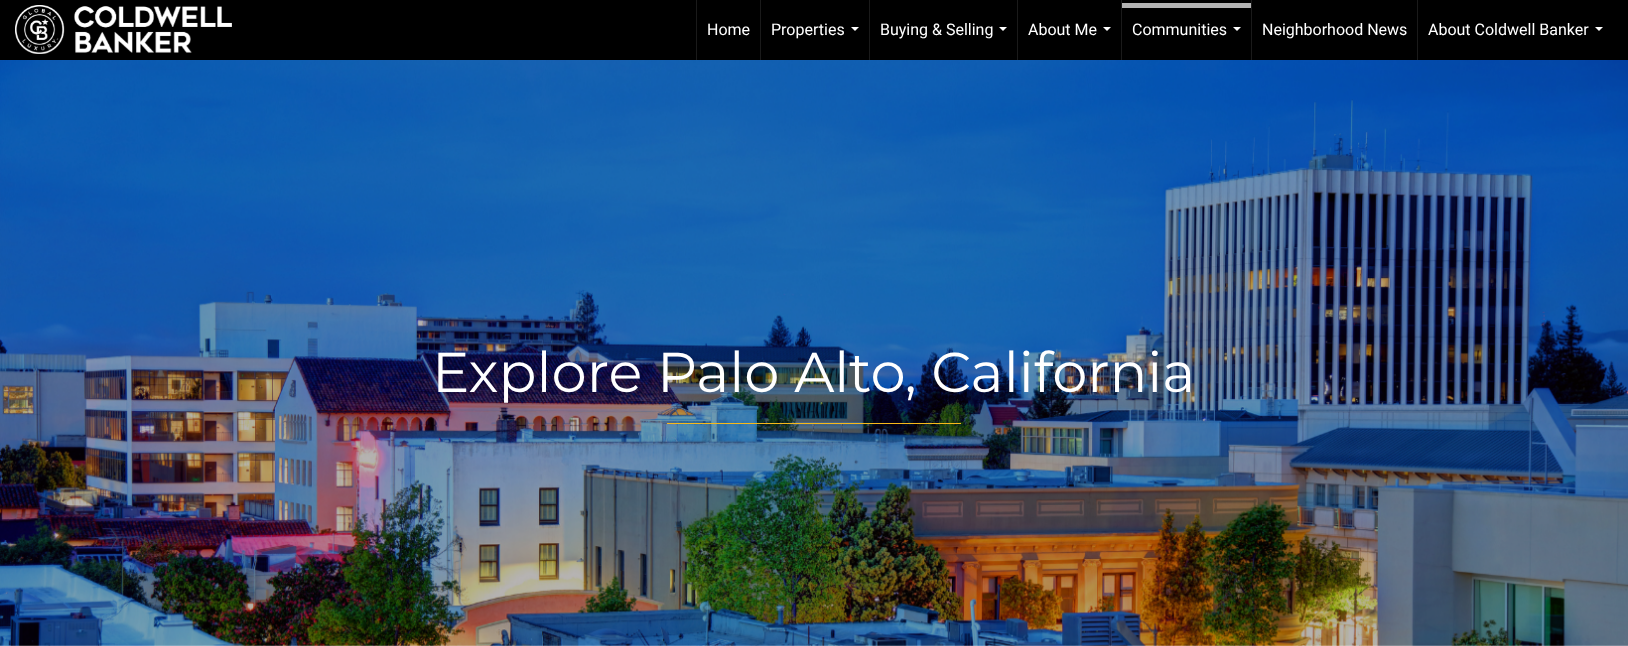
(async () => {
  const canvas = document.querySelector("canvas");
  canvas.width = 1628;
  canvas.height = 646;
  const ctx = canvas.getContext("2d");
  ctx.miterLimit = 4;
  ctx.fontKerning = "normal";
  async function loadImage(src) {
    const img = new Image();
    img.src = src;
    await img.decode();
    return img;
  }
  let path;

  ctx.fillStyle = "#ffffff";
  ctx.fillRect(0, 0, 1628, 646);
  ctx.fillStyle = "#000000";
  ctx.fillRect(0, 0, 1628, 60);
  ctx.drawImage(await loadImage("img/1.png"), 15, 5, 217, 49);
  ctx.fillStyle = "#1a1a1a";
  ctx.fillRect(696, 0, 1, 60);
  ctx.fillRect(760, 0, 1, 60);
  ctx.fillStyle = "#ffffff";
  path = new Path2D("M851 27H859L855 31Z");
  ctx.fill(path);
  ctx.fillStyle = "#1a1a1a";
  ctx.fillRect(869, 0, 1, 60);
  ctx.fillStyle = "#ffffff";
  path = new Path2D("M999 27H1007L1003 31Z");
  ctx.fill(path);
  ctx.fillStyle = "#1a1a1a";
  ctx.fillRect(1017, 0, 1, 60);
  ctx.fillStyle = "#ffffff";
  path = new Path2D("M1103 27H1111L1107 31Z");
  ctx.fill(path);
  ctx.fillStyle = "#1a1a1a";
  ctx.fillRect(1121, 0, 1, 60);
  ctx.fillStyle = "#b3b3b3";
  ctx.fillRect(1122, 3, 129, 5);
  ctx.fillStyle = "#ffffff";
  path = new Path2D("M1233 27H1241L1237 31Z");
  ctx.fill(path);
  ctx.fillStyle = "#1a1a1a";
  ctx.fillRect(1251, 0, 1, 60);
  ctx.fillRect(1417, 0, 1, 60);
  ctx.fillStyle = "#ffffff";
  path = new Path2D("M1595 27H1603L1599 31Z");
  ctx.fill(path);
  ctx.drawImage(await loadImage("img/2.png"), 0, 60, 1628, 586);
  ctx.fillStyle = "#f7b91a";
  ctx.fillRect(667, 423, 294, 1);
  ctx.font = "16px Roboto";
  ctx.fillStyle = "#ffffff";
  for (const [text, x, y] of [
    ["Home", 707, 35],
    ["Properties", 771, 35],
    ["Buying & Selling", 880, 35],
    ["About Me", 1028, 35],
    ["Communities", 1132, 35],
    ["Neighborhood News", 1262, 35],
    ["About Coldwell Banker", 1428, 35],
  ]) {
    ctx.fillText(text, x, y);
  }
  ctx.font = "100 56px Montserrat";
  ctx.fillText("Explore Palo Alto, California", 432, 392);
})();
